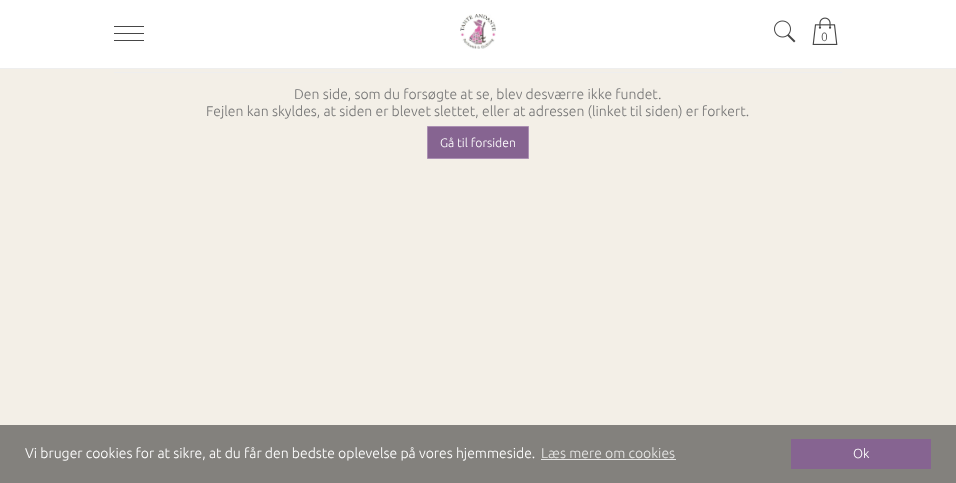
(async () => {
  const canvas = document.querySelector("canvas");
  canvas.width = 956;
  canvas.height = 483;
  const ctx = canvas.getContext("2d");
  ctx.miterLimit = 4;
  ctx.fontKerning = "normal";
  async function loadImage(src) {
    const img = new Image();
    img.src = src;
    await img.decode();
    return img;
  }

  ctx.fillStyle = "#f3efe7";
  ctx.fillRect(0, 0, 956, 483);
  for (const [x, y, w, h, color] of [
    [0, 0, 956, 68, "#ffffff"],
    [0, 68, 956, 1, "#eeeeee"],
    [114, 33, 30, 1, "#464646"],
    [114, 26, 30, 1, "#464646"],
    [114, 40, 30, 1, "#464646"],
  ]) {
    ctx.fillStyle = color;
    ctx.fillRect(x, y, w, h);
  }
  ctx.drawImage(await loadImage("img/1.png"), 460, 14, 36, 35);
  ctx.drawImage(await loadImage("img/2.png"), 774, 20, 22, 23);
  ctx.drawImage(await loadImage("img/3.png"), 812, 17, 26, 28);
  ctx.fillStyle = "#eeeeee";
  ctx.fillRect(114, 72, 728, 1);
  ctx.fillStyle = "#866491";
  ctx.beginPath();
  ctx.rect(427.5, 126.5, 101, 32);
  ctx.fill();
  ctx.strokeStyle = "#aa8fb2";
  ctx.stroke();
  for (const [x, y, w, h, color] of [
    [0, 425, 956, 58, "#83817d"],
    [541, 459, 135, 1, "#e6e6e5"],
    [791, 439, 140, 30, "#866491"],
  ]) {
    ctx.fillStyle = color;
    ctx.fillRect(x, y, w, h);
  }
  ctx.font = "300 12px Ubuntu";
  ctx.fillStyle = "#464646";
  ctx.fillText("0", 821, 41);
  ctx.font = "300 14px Ubuntu";
  ctx.fillStyle = "#777777";
  ctx.fillText("Den side, som du forsøgte at se, blev desværre ikke fundet.", 294, 99);
  ctx.fillText("Fejlen kan skyldes, at siden er blevet slettet, eller at adressen (linket til siden) er forkert.", 206, 116);
  ctx.font = "300 12.25px Ubuntu";
  ctx.fillStyle = "#ffffff";
  ctx.fillText("Gå til forsiden", 440, 147);
  ctx.font = "300 14px Ubuntu";
  ctx.fillText("Vi bruger cookies for at sikre, at du får den bedste oplevelse på vores hjemmeside.", 25, 458);
  ctx.fillStyle = "#e6e6e5";
  ctx.fillText("Læs mere om cookies", 541, 458);
  ctx.font = "300 13px Ubuntu";
  ctx.fillStyle = "#ffffff";
  ctx.fillText("Ok", 853, 458);
})();
